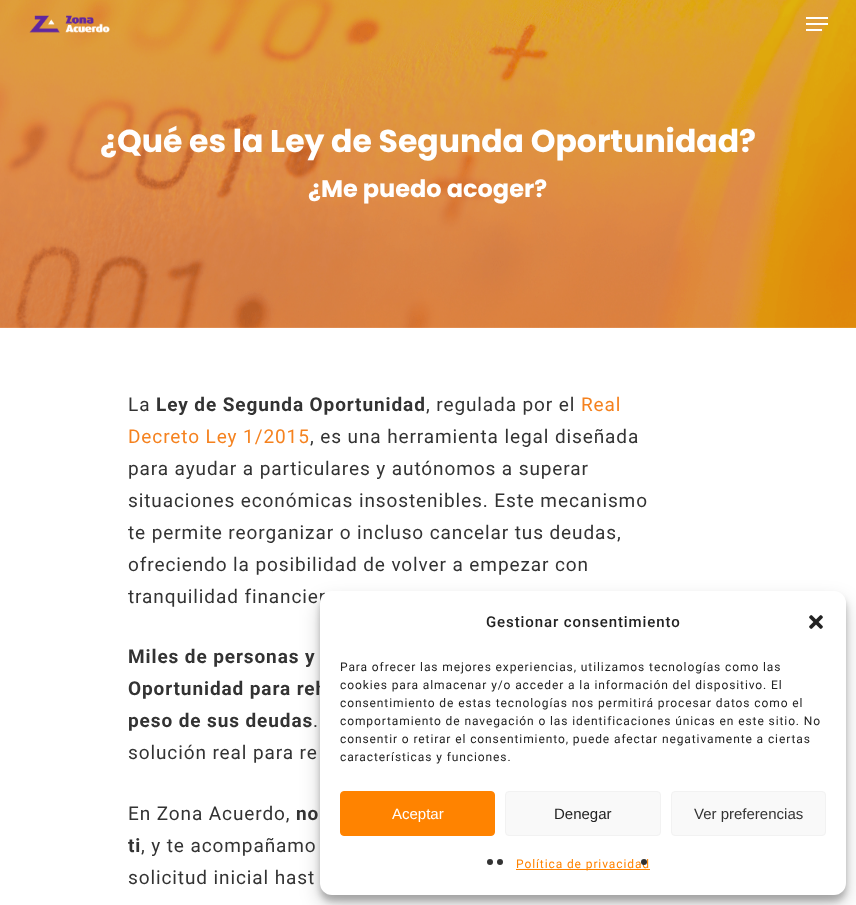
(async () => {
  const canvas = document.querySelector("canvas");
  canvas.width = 856;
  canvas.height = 905;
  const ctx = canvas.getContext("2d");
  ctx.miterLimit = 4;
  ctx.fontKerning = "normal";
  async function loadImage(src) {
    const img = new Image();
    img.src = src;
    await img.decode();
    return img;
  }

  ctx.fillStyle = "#ffffff";
  ctx.fillRect(0, 0, 856, 905);
  ctx.drawImage(await loadImage("img/2.png"), 0, 0, 856, 328);
  ctx.drawImage(await loadImage("img/1.png"), 29, 15, 81, 18);
  for (const [x, y, w, h, color] of [
    [806, 17, 22, 2, "#ffffff"],
    [806, 29, 16, 2, "#ffffff"],
    [806, 23, 22, 2, "#ffffff"],
  ]) {
    ctx.fillStyle = color;
    ctx.fillRect(x, y, w, h);
  }
  ctx.fillStyle = "rgba(0, 0, 0, 0.23)";
  ctx.filter = "blur(3px)";
  ctx.beginPath();
  ctx.roundRect(320, 597, 526, 304, 12);
  ctx.fill();
  ctx.filter = "none";
  ctx.fillStyle = "rgba(0, 0, 0, 0.19)";
  ctx.filter = "blur(10px)";
  ctx.beginPath();
  ctx.roundRect(320, 601, 526, 304, 12);
  ctx.fill();
  ctx.filter = "none";
  ctx.font = "bold 31.5px Poppins";
  ctx.fillStyle = "#ffffff";
  ctx.fillText("¿Qué es la Ley de Segunda Oportunidad?", 100, 152);
  ctx.font = "bold 24px Poppins";
  ctx.fillText("¿Me puedo acoger?", 308, 197);
  ctx.letterSpacing = "0.9px";
  ctx.font = "19px Roboto";
  ctx.fillStyle = "#333333";
  ctx.fillText("La", 128, 411);
  ctx.font = "bold 19px Roboto";
  ctx.fillText("Ley de Segunda Oportunidad", 156, 411);
  ctx.font = "19px Roboto";
  ctx.fillText(", regulada por el", 426, 411);
  ctx.fillStyle = "#f5821f";
  ctx.fillText("Real", 581, 411);
  ctx.fillText("Decreto Ley 1/2015", 128, 443);
  ctx.fillStyle = "#333333";
  for (const [text, x, y] of [
    [", es una herramienta legal diseñada", 310, 443],
    ["para ayudar a particulares y autónomos a superar", 128, 475],
    ["situaciones económicas insostenibles. Este mecanismo", 128, 507],
    ["te permite reorganizar o incluso cancelar tus deudas,", 128, 539],
    ["ofreciendo la posibilidad de volver a empezar con", 128, 571],
    ["tranquilidad financier", 128, 603],
  ]) {
    ctx.fillText(text, x, y);
  }
  ctx.font = "bold 19px Roboto";
  for (const [text, x, y] of [
    ["Miles de personas y", 128, 663],
    ["Oportunidad para reh", 128, 695],
    ["peso de sus deudas", 128, 727],
  ]) {
    ctx.fillText(text, x, y);
  }
  ctx.font = "19px Roboto";
  for (const [text, x, y] of [
    [".", 313, 727],
    ["solución real para re", 128, 759],
    ["En Zona Acuerdo,", 128, 820],
  ]) {
    ctx.fillText(text, x, y);
  }
  ctx.font = "bold 19px Roboto";
  ctx.fillText("no", 296, 820);
  ctx.fillText("ti", 128, 852);
  ctx.font = "19px Roboto";
  ctx.fillText(", y te acompañamo", 141, 852);
  ctx.fillText("solicitud inicial hast", 128, 884);
  ctx.fillStyle = "#ffffff";
  ctx.beginPath();
  ctx.roundRect(320, 591, 526, 304, 12);
  ctx.fill();
  ctx.font = "500 15px Roboto";
  ctx.fillStyle = "#222222";
  ctx.fillText("Gestionar consentimiento", 486, 627);
  ctx.drawImage(await loadImage("img/3.png"), 809, 615, 14, 14);
  ctx.font = "12px Roboto";
  for (const [text, x, y] of [
    ["Para ofrecer las mejores experiencias, utilizamos tecnologías como las", 340, 671],
    ["cookies para almacenar y/o acceder a la información del dispositivo. El", 340, 689],
    ["consentimiento de estas tecnologías nos permitirá procesar datos como el", 340, 707],
    ["comportamiento de navegación o las identificaciones únicas en este sitio. No", 340, 725],
    ["consentir o retirar el consentimiento, puede afectar negativamente a ciertas", 340, 743],
    ["características y funciones.", 340, 761],
  ]) {
    ctx.fillText(text, x, y);
  }
  ctx.fillStyle = "#ff8300";
  ctx.beginPath();
  ctx.roundRect(340.5, 791.5, 154, 44, 3.5);
  ctx.fill();
  ctx.strokeStyle = "#ff8300";
  ctx.stroke();
  ctx.letterSpacing = "0px";
  ctx.font = "15px Liberation Sans";
  ctx.fillStyle = "#ffffff";
  ctx.fillText("Aceptar", 392, 819);
  ctx.fillStyle = "#f9f9f9";
  ctx.beginPath();
  ctx.roundRect(505.5, 791.5, 155, 44, 3.5);
  ctx.fill();
  ctx.strokeStyle = "#f2f2f2";
  ctx.stroke();
  ctx.fillStyle = "#222222";
  ctx.fillText("Denegar", 554, 819);
  ctx.fillStyle = "#f9f9f9";
  ctx.beginPath();
  ctx.roundRect(671.5, 791.5, 154, 44, 3.5);
  ctx.fill();
  ctx.stroke();
  ctx.fillStyle = "#333333";
  ctx.fillText("Ver preferencias", 694, 819);
  ctx.beginPath();
  ctx.arc(490, 862, 3, 0, Math.PI * 2);
  ctx.fill();
  ctx.beginPath();
  ctx.arc(500, 862, 3, 0, Math.PI * 2);
  ctx.fill();
  ctx.fillStyle = "#ff8300";
  ctx.fillRect(516, 869, 134, 1);
  ctx.letterSpacing = "0.9px";
  ctx.font = "12px Roboto";
  ctx.fillText("Política de privacidad", 516, 868);
  ctx.fillStyle = "#333333";
  ctx.beginPath();
  ctx.arc(644, 862, 3, 0, Math.PI * 2);
  ctx.fill();
})();
